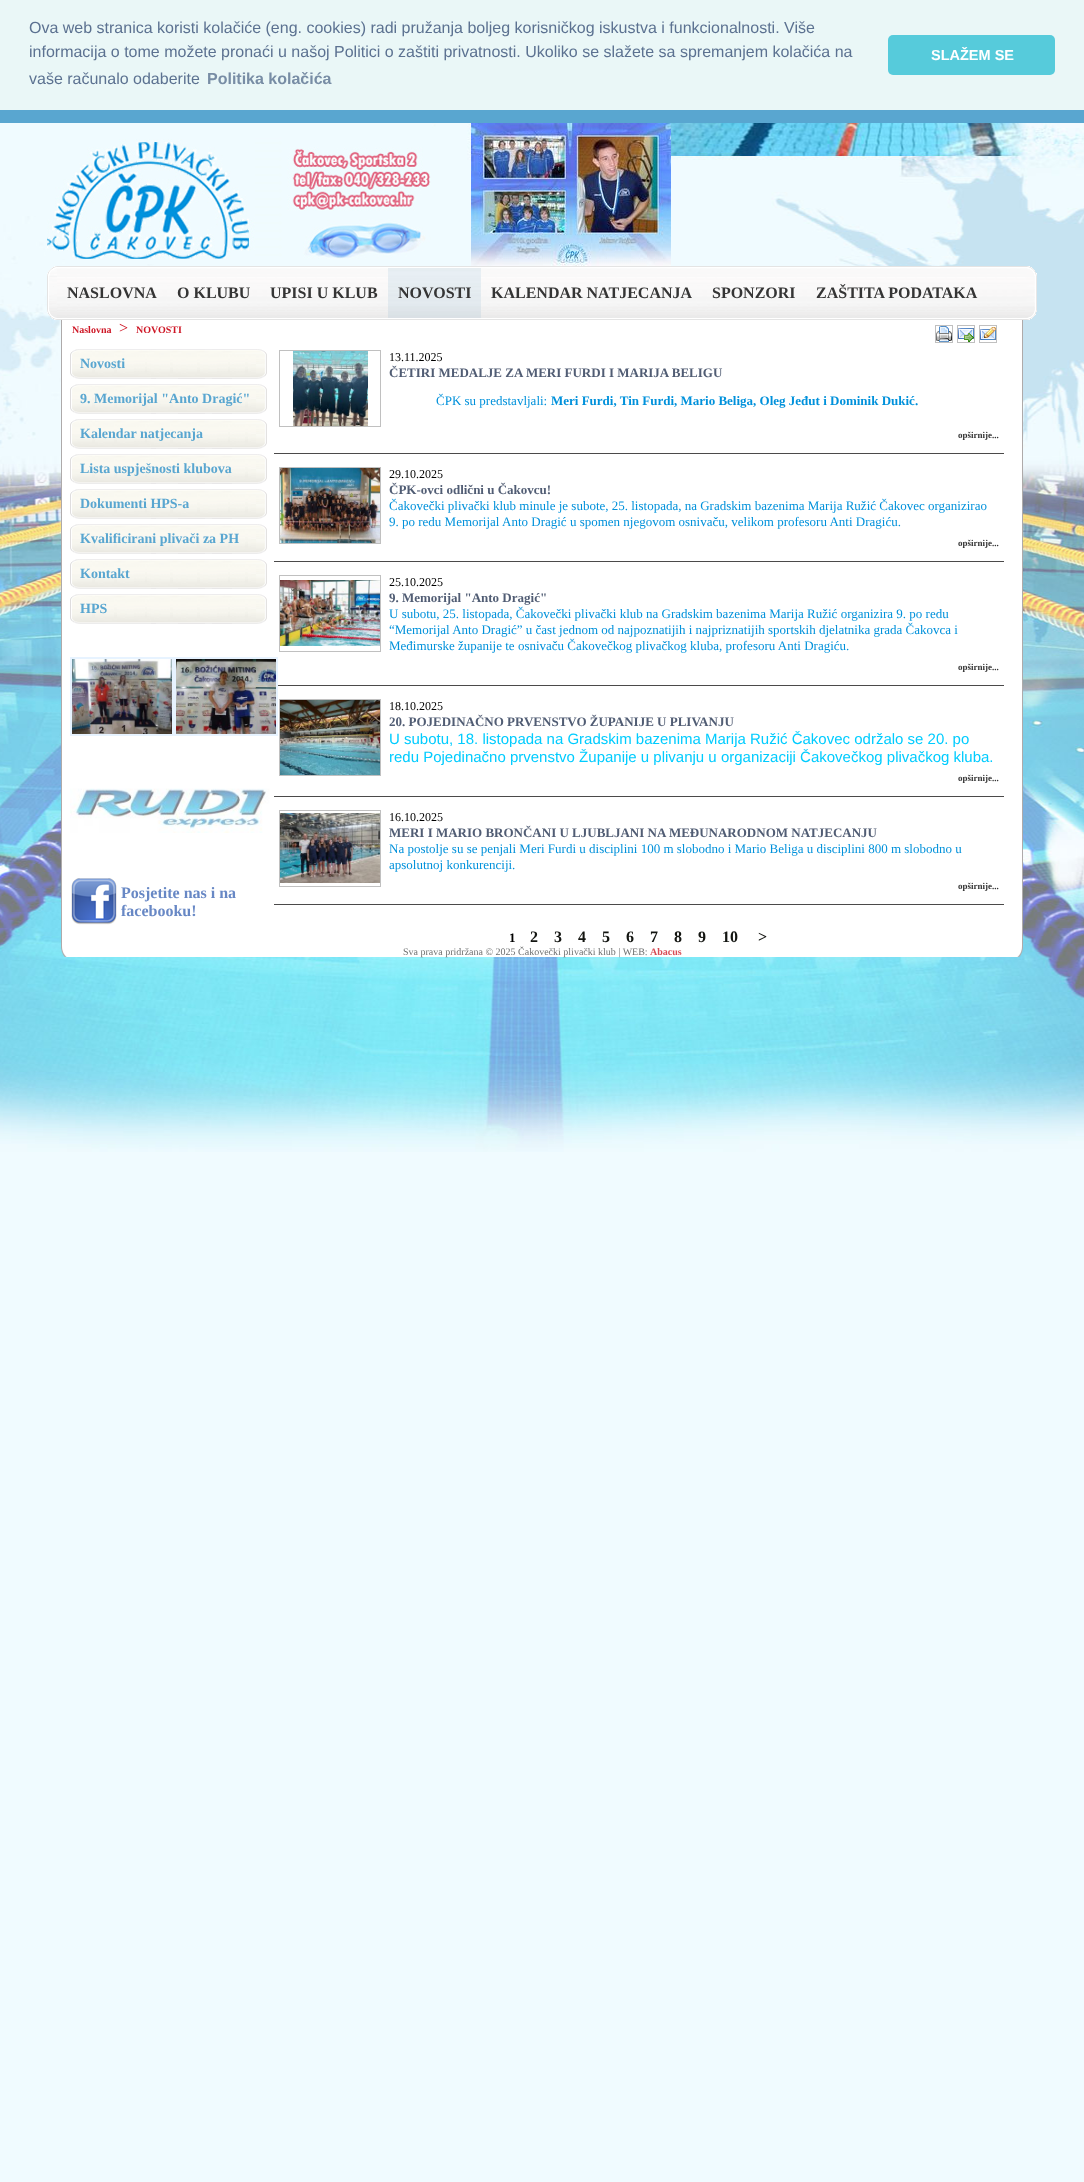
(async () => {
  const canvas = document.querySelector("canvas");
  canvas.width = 1084;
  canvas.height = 2182;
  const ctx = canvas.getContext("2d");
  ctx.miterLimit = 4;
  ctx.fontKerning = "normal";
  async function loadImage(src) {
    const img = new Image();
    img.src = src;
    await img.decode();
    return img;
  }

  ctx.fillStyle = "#f0fbff";
  ctx.fillRect(0, 0, 1084, 2182);
  ctx.drawImage(await loadImage("img/1.png"), 0, 123, 1084, 1029);
  ctx.fillStyle = "#eaf7f7";
  ctx.fillRect(0, 0, 1084, 110);
  ctx.fillStyle = "#56cbdb";
  ctx.beginPath();
  ctx.roundRect(888, 35, 167, 40, 5);
  ctx.fill();
  ctx.fillStyle = "#59a6d0";
  ctx.fillRect(0, 110, 1084, 13);
  ctx.drawImage(await loadImage("img/2.png"), 47, 123, 385, 136);
  ctx.drawImage(await loadImage("img/3.png"), 471, 123, 200, 143);
  ctx.drawImage(await loadImage("img/4.png"), 47, 266, 10, 54);
  ctx.drawImage(await loadImage("img/5.png"), 1027, 266, 10, 54);
  ctx.drawImage(await loadImage("img/6.png"), 57, 266, 970, 54);
  ctx.drawImage(await loadImage("img/7.png"), 388, 268, 93, 50);
  for (const [x, y, w, h, color] of [
    [62, 320, 960, 626, "#ffffff"],
    [1022, 320, 1, 626, "#aeaaaa"],
    [61, 320, 1, 626, "#aeaaaa"],
  ]) {
    ctx.fillStyle = color;
    ctx.fillRect(x, y, w, h);
  }
  ctx.strokeStyle = "#c0c0c0";
  ctx.strokeRect(935.5, 325.5, 17, 17);
  ctx.drawImage(await loadImage("img/8.png"), 936, 326, 16, 16);
  ctx.strokeRect(957.5, 325.5, 17, 17);
  ctx.drawImage(await loadImage("img/9.png"), 958, 328, 16, 14);
  ctx.strokeRect(979.5, 325.5, 17, 17);
  ctx.drawImage(await loadImage("img/10.png"), 980, 327, 16, 13);
  ctx.drawImage(await loadImage("img/11.png"), 70, 349, 197, 30);
  ctx.drawImage(await loadImage("img/11.png"), 70, 384, 197, 30);
  ctx.drawImage(await loadImage("img/11.png"), 70, 419, 197, 30);
  ctx.drawImage(await loadImage("img/11.png"), 70, 454, 197, 30);
  ctx.drawImage(await loadImage("img/11.png"), 70, 489, 197, 30);
  ctx.drawImage(await loadImage("img/11.png"), 70, 524, 197, 30);
  ctx.drawImage(await loadImage("img/11.png"), 70, 559, 197, 30);
  ctx.drawImage(await loadImage("img/11.png"), 70, 594, 197, 30);
  ctx.strokeStyle = "#e7f3ff";
  ctx.lineWidth = 2;
  ctx.strokeRect(71, 658, 102, 77);
  ctx.drawImage(await loadImage("img/12.png"), 72, 659, 100, 75);
  ctx.fillStyle = "#4b4a4a";
  ctx.fillRect(274, 685, 730, 1);
  ctx.strokeRect(175, 658, 102, 77);
  ctx.drawImage(await loadImage("img/13.png"), 176, 659, 100, 75);
  ctx.drawImage(await loadImage("img/14.png"), 70, 788, 200, 45);
  ctx.drawImage(await loadImage("img/15.png"), 71, 878, 46, 47);
  ctx.strokeStyle = "#c0c0c0";
  ctx.lineWidth = 1;
  ctx.strokeRect(279.5, 350.5, 101, 76);
  ctx.drawImage(await loadImage("img/16.png"), 293, 351, 75, 75);
  ctx.fillRect(274, 453, 730, 1);
  ctx.strokeRect(279.5, 467.5, 101, 76);
  ctx.drawImage(await loadImage("img/17.png"), 280, 468, 100, 75);
  ctx.fillRect(274, 561, 730, 1);
  ctx.strokeRect(279.5, 575.5, 101, 76);
  ctx.drawImage(await loadImage("img/18.png"), 280, 580, 100, 66);
  ctx.strokeRect(279.5, 699.5, 101, 76);
  ctx.drawImage(await loadImage("img/19.png"), 280, 700, 100, 75);
  ctx.fillRect(274, 796, 730, 1);
  ctx.strokeRect(279.5, 810.5, 101, 76);
  ctx.drawImage(await loadImage("img/20.png"), 280, 813, 100, 70);
  ctx.fillRect(274, 904, 730, 1);
  ctx.drawImage(await loadImage("img/21.png"), 61, 946, 962, 11);
  ctx.font = "16px Liberation Sans";
  ctx.fillStyle = "#5c7291";
  for (const [text, x, y] of [
    ["Ova web stranica koristi kolačiće (eng. cookies) radi pružanja boljeg korisničkog iskustva i funkcionalnosti. Više", 29, 33],
    ["informacija o tome možete pronaći u našoj Politici o zaštiti privatnosti. Ukoliko se slažete sa spremanjem kolačića na", 29, 57],
    ["vaše računalo odaberite", 29, 84],
  ]) {
    ctx.fillText(text, x, y);
  }
  ctx.font = "bold 16px Liberation Sans";
  ctx.fillStyle = "#788da5";
  ctx.fillText("Politika kolačića", 207, 84);
  ctx.font = "bold 14.5px Liberation Sans";
  ctx.fillStyle = "#ffffff";
  ctx.fillText("SLAŽEM SE", 931, 60);
  ctx.font = "bold 16px Liberation Serif";
  ctx.fillStyle = "#353535";
  for (const [text, x, y] of [
    ["NASLOVNA", 67, 298],
    ["O KLUBU", 177, 298],
    ["UPISI U KLUB", 270, 298],
    ["NOVOSTI", 398, 298],
    ["KALENDAR NATJECANJA", 491, 298],
    ["SPONZORI", 712, 298],
    ["ZAŠTITA PODATAKA", 816, 298],
  ]) {
    ctx.fillText(text, x, y);
  }
  ctx.font = "bold 10px Liberation Serif";
  ctx.fillStyle = "#ce1625";
  ctx.fillText("Naslovna", 72, 333);
  ctx.font = "16px Liberation Serif";
  ctx.fillText(">", 119, 333);
  ctx.font = "bold 10px Liberation Serif";
  ctx.fillText("NOVOSTI", 136, 333);
  ctx.font = "bold 14px Liberation Serif";
  ctx.fillStyle = "#59a6d0";
  for (const [text, x, y] of [
    ["Novosti", 80, 368],
    ["9. Memorijal \"Anto Dragić\"", 80, 403],
    ["Kalendar natjecanja", 80, 438],
    ["Lista uspješnosti klubova", 80, 473],
    ["Dokumenti HPS-a", 80, 508],
    ["Kvalificirani plivači za PH", 80, 543],
    ["Kontakt", 80, 578],
    ["HPS", 80, 613],
  ]) {
    ctx.fillText(text, x, y);
  }
  ctx.font = "bold 16px Liberation Serif";
  ctx.fillStyle = "#6888c5";
  ctx.fillText("Posjetite nas i na", 121, 898);
  ctx.fillText("facebooku!", 121, 916);
  ctx.font = "12px Liberation Serif";
  ctx.fillStyle = "#000000";
  ctx.fillText("13.11.2025", 389, 361);
  ctx.font = "bold 13px Liberation Serif";
  ctx.fillStyle = "#515d74";
  ctx.fillText("ČETIRI MEDALJE ZA MERI FURDI I MARIJA BELIGU", 389, 377);
  ctx.font = "13px Liberation Serif";
  ctx.fillStyle = "#0091db";
  ctx.fillText("ČPK su predstavljali:", 436, 405);
  ctx.font = "bold 13px Liberation Serif";
  ctx.fillText("Meri Furdi, Tin Furdi, Mario Beliga, Oleg Jeđut i Dominik Dukić.", 551, 405);
  ctx.font = "bold 9px Liberation Serif";
  ctx.fillStyle = "#353535";
  ctx.fillText("opširnije...", 958, 438);
  ctx.font = "12px Liberation Serif";
  ctx.fillStyle = "#000000";
  ctx.fillText("29.10.2025", 389, 478);
  ctx.font = "bold 13px Liberation Serif";
  ctx.fillStyle = "#515d74";
  ctx.fillText("ČPK-ovci odlični u Čakovcu!", 389, 494);
  ctx.font = "13px Liberation Serif";
  ctx.fillStyle = "#0091db";
  ctx.fillText("Čakovečki plivački klub minule je subote, 25. listopada, na Gradskim bazenima Marija Ružić Čakovec organizirao", 389, 510);
  ctx.fillText("9. po redu Memorijal Anto Dragić u spomen njegovom osnivaču, velikom profesoru Anti Dragiću.", 389, 526);
  ctx.font = "bold 9px Liberation Serif";
  ctx.fillStyle = "#353535";
  ctx.fillText("opširnije...", 958, 546);
  ctx.font = "12px Liberation Serif";
  ctx.fillStyle = "#000000";
  ctx.fillText("25.10.2025", 389, 586);
  ctx.font = "bold 13px Liberation Serif";
  ctx.fillStyle = "#515d74";
  ctx.fillText("9. Memorijal \"Anto Dragić\"", 389, 602);
  ctx.font = "13px Liberation Serif";
  ctx.fillStyle = "#0091db";
  for (const [text, x, y] of [
    ["U subotu, 25. listopada, Čakovečki plivački klub na Gradskim bazenima Marija Ružić organizira 9. po redu", 389, 618],
    ["“Memorijal Anto Dragić” u čast jednom od najpoznatijih i najpriznatijih sportskih djelatnika grada Čakovca i", 389, 634],
    ["Međimurske županije te osnivaču Čakovečkog plivačkog kluba, profesoru Anti Dragiću.", 389, 650],
  ]) {
    ctx.fillText(text, x, y);
  }
  ctx.font = "bold 9px Liberation Serif";
  ctx.fillStyle = "#353535";
  ctx.fillText("opširnije...", 958, 670);
  ctx.font = "12px Liberation Serif";
  ctx.fillStyle = "#000000";
  ctx.fillText("18.10.2025", 389, 710);
  ctx.font = "bold 13px Liberation Serif";
  ctx.fillStyle = "#515d74";
  ctx.fillText("20. POJEDINAČNO PRVENSTVO ŽUPANIJE U PLIVANJU", 389, 726);
  ctx.font = "15px Liberation Sans";
  ctx.fillStyle = "#00ccff";
  ctx.fillText("U subotu, 18. listopada na Gradskim bazenima Marija Ružić Čakovec održalo se 20. po", 389, 744);
  ctx.fillText("redu Pojedinačno prvenstvo Županije u plivanju u organizaciji Čakovečkog plivačkog kluba.", 389, 762);
  ctx.font = "bold 9px Liberation Serif";
  ctx.fillStyle = "#353535";
  ctx.fillText("opširnije...", 958, 781);
  ctx.font = "12px Liberation Serif";
  ctx.fillStyle = "#000000";
  ctx.fillText("16.10.2025", 389, 821);
  ctx.font = "bold 13px Liberation Serif";
  ctx.fillStyle = "#515d74";
  ctx.fillText("MERI I MARIO BRONČANI U LJUBLJANI NA MEĐUNARODNOM NATJECANJU", 389, 837);
  ctx.font = "13px Liberation Serif";
  ctx.fillStyle = "#0091db";
  ctx.fillText("Na postolje su se penjali Meri Furdi u disciplini 100 m slobodno i Mario Beliga u disciplini 800 m slobodno u", 389, 853);
  ctx.fillText("apsolutnoj konkurenciji.", 389, 869);
  ctx.font = "bold 9px Liberation Serif";
  ctx.fillStyle = "#353535";
  ctx.fillText("opširnije...", 958, 889);
  ctx.font = "bold 13px Liberation Serif";
  ctx.fillStyle = "#000000";
  ctx.fillText("1", 509, 942);
  ctx.font = "bold 16px Liberation Serif";
  ctx.fillStyle = "#131511";
  for (const [text, x, y] of [
    ["2", 530, 942],
    ["3", 554, 942],
    ["4", 578, 942],
    ["5", 602, 942],
    ["6", 626, 942],
    ["7", 650, 942],
    ["8", 674, 942],
    ["9", 698, 942],
    ["10", 722, 942],
    [">", 758, 942],
  ]) {
    ctx.fillText(text, x, y);
  }
  ctx.font = "10px Liberation Serif";
  ctx.fillStyle = "#6e7070";
  ctx.fillText("Sva prava pridržana © 2025 Čakovečki plivački klub | WEB:", 403, 955);
  ctx.font = "bold 10px Liberation Serif";
  ctx.fillStyle = "#d74c55";
  ctx.fillText("Abacus", 650, 955);
})();
